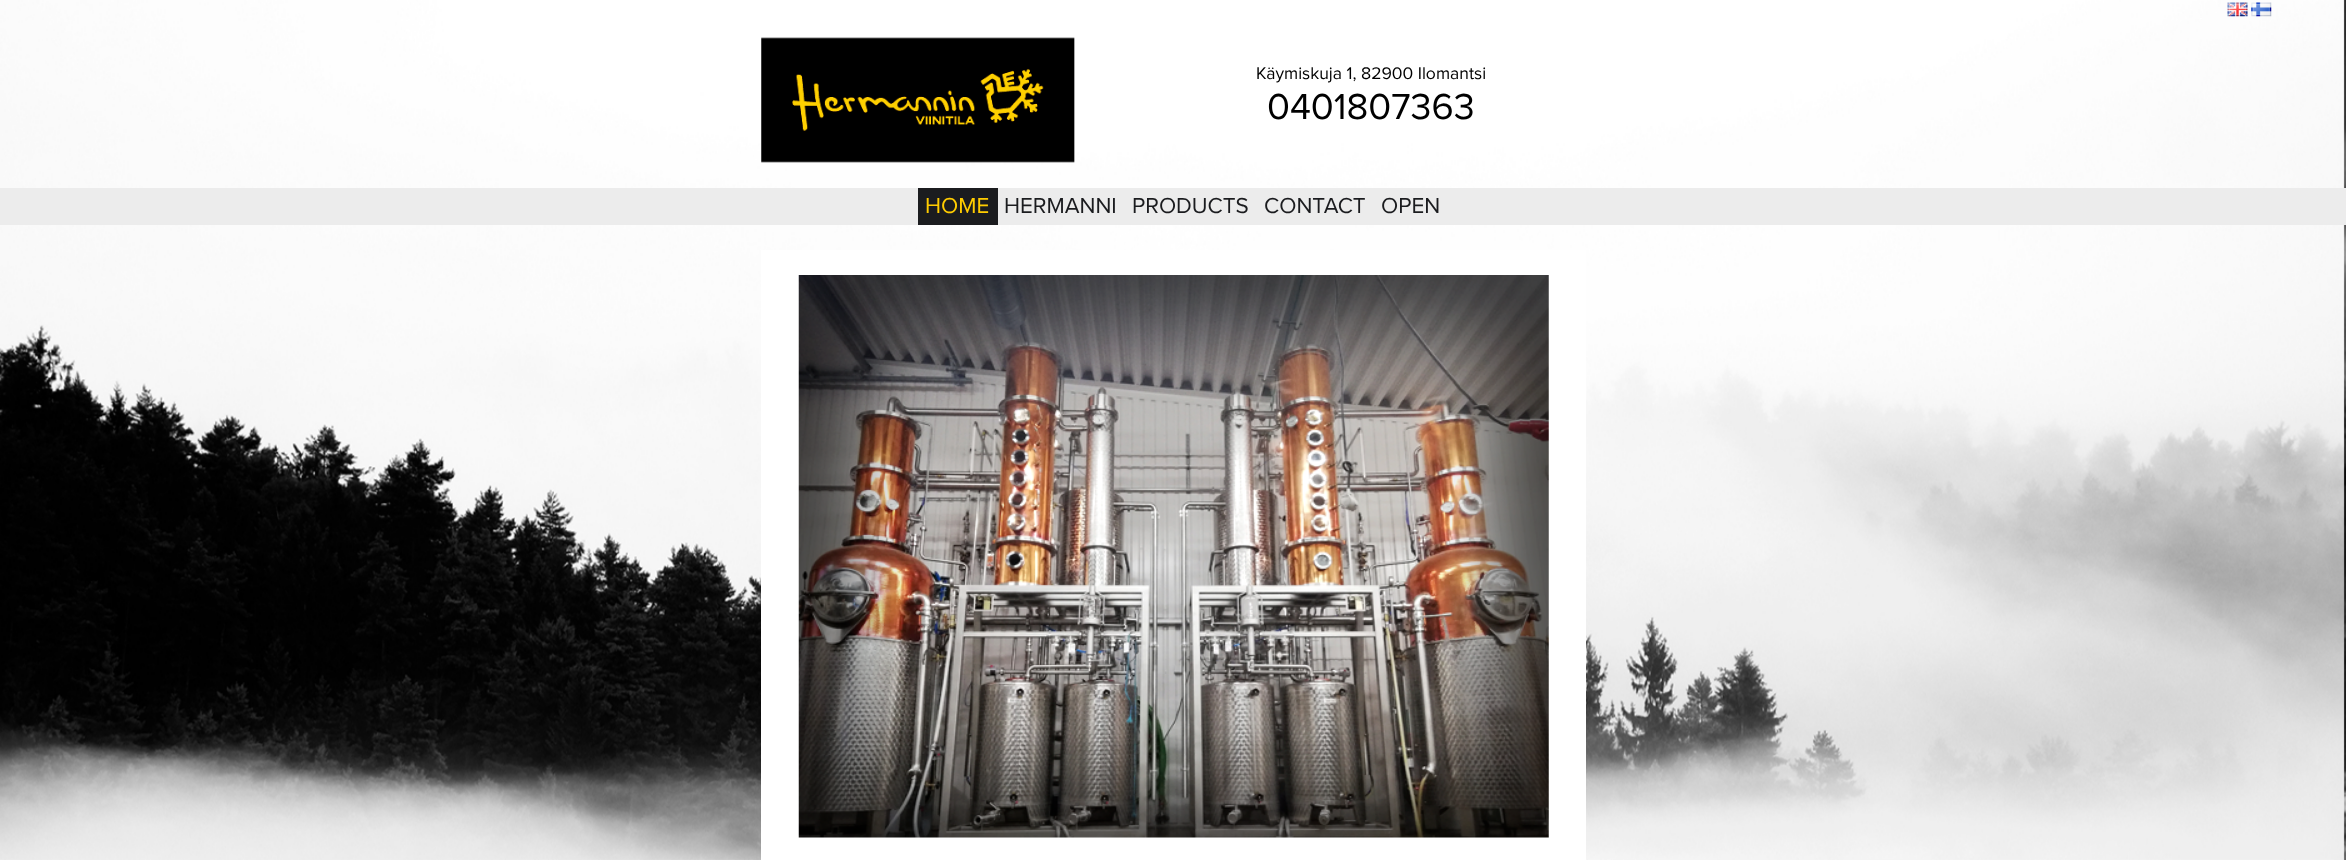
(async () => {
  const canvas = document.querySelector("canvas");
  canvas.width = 2346;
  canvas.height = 860;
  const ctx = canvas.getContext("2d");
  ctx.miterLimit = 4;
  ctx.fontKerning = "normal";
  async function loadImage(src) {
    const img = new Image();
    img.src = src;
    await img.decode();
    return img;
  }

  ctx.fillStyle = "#ffffff";
  ctx.fillRect(0, 0, 2346, 860);
  ctx.drawImage(await loadImage("img/1.png"), 0, 859, 2346, 1);
  ctx.drawImage(await loadImage("img/2.png"), 0, 0, 2346, 860);
  ctx.drawImage(await loadImage("img/3.png"), 2227, 2, 21, 15);
  ctx.drawImage(await loadImage("img/4.png"), 2251, 2, 21, 15);
  ctx.fillRect(2200, 18, 2, 1);
  ctx.drawImage(await loadImage("img/5.png"), 761, 37, 314, 126);
  for (const [x, y, w, h, color] of [
    [0, 188, 2346, 37, "#ececec"],
    [918, 188, 80, 37, "#1b1c1f"],
    [761, 250, 825, 610, "#ffffff"],
  ]) {
    ctx.fillStyle = color;
    ctx.fillRect(x, y, w, h);
  }
  ctx.drawImage(await loadImage("img/6.png"), 798, 275, 751, 563);
  ctx.font = "17.5px Proxima Nova";
  ctx.fillStyle = "#000000";
  ctx.fillText("Käymiskuja 1, 82900 Ilomantsi", 1256, 79);
  ctx.font = "37.5px Proxima Nova";
  ctx.fillText("0401807363", 1267, 119);
  ctx.font = "22.5px Proxima Nova";
  ctx.fillStyle = "#ffcc00";
  ctx.fillText("HOME", 925, 213);
  ctx.fillStyle = "#1b1c1f";
  for (const [text, x, y] of [
    ["HERMANNI", 1004, 213],
    ["PRODUCTS", 1132, 213],
    ["CONTACT", 1264, 213],
    ["OPEN", 1381, 213],
  ]) {
    ctx.fillText(text, x, y);
  }
})();
